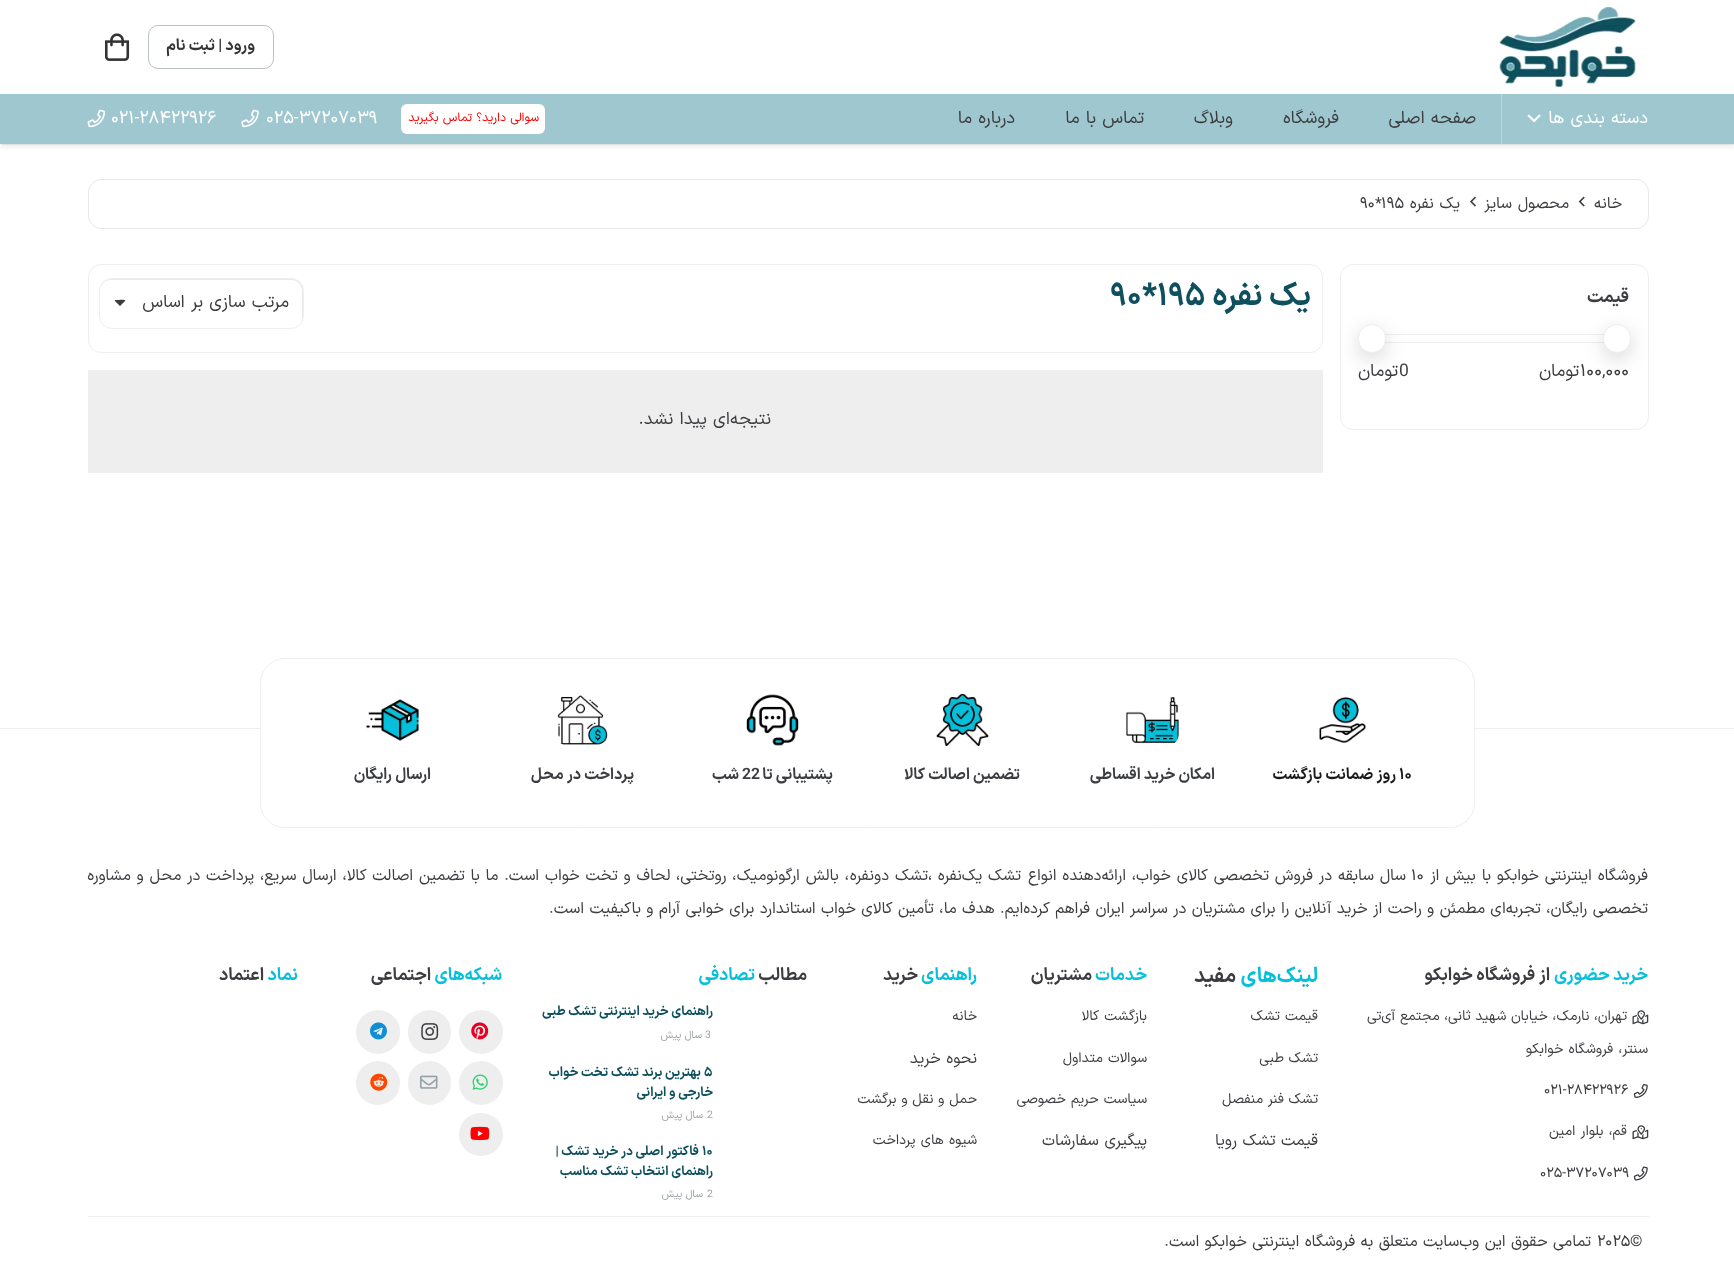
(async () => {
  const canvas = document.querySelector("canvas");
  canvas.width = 1734;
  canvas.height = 1271;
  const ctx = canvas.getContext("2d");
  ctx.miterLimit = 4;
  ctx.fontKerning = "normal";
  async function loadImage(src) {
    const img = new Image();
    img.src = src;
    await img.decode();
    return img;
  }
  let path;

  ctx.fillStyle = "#ffffff";
  ctx.fillRect(0, 0, 1734, 1271);
  ctx.drawImage(await loadImage("img/1.png"), 1499, 7, 137, 80);
  ctx.beginPath();
  ctx.roundRect(148.5, 25.5, 125, 43, 9.5);
  ctx.strokeStyle = "#bac1c2";
  ctx.stroke();
  ctx.drawImage(await loadImage("img/2.png"), 105, 33, 25, 28);
  ctx.fillStyle = "rgba(0, 0, 0, 0.05)";
  ctx.filter = "blur(0.5px)";
  ctx.beginPath();
  ctx.rect(1, 98, 1733, 47);
  ctx.fill();
  ctx.filter = "none";
  ctx.fillStyle = "rgba(0, 0, 0, 0.1)";
  ctx.filter = "blur(3px)";
  ctx.beginPath();
  ctx.rect(1, 99, 1733, 47);
  ctx.fill();
  ctx.filter = "none";
  ctx.fillStyle = "#9fc7cf";
  ctx.fillRect(0, 94, 1734, 50);
  ctx.drawImage(await loadImage("img/3.png"), 1527, 114, 14, 9);
  ctx.fillStyle = "#cfcfcf";
  ctx.fillRect(1501, 94, 1, 50);
  ctx.fillStyle = "#ffffff";
  ctx.beginPath();
  ctx.roundRect(401, 104, 144, 30, 6);
  ctx.fill();
  ctx.drawImage(await loadImage("img/4.png"), 241, 109, 18, 19);
  ctx.drawImage(await loadImage("img/5.png"), 87, 109, 18, 19);
  ctx.beginPath();
  ctx.roundRect(88.5, 179.5, 1560, 49, 12.5);
  ctx.strokeStyle = "#e8e8e8";
  ctx.stroke();
  ctx.drawImage(await loadImage("img/6.png"), 1578, 196, 7, 11);
  ctx.drawImage(await loadImage("img/7.png"), 1470, 196, 6, 11);
  ctx.beginPath();
  ctx.roundRect(1340.5, 264.5, 308, 165, 12.5);
  ctx.strokeStyle = "#eeeeee";
  ctx.stroke();
  ctx.strokeRect(1359.5, 334.5, 270, 8);
  ctx.fillStyle = "rgba(0, 0, 0, 0.15)";
  ctx.filter = "blur(9.5px)";
  ctx.beginPath();
  ctx.roundRect(1603, 330, 28, 29, 14);
  ctx.fill();
  ctx.filter = "none";
  ctx.fillStyle = "#ffffff";
  ctx.beginPath();
  ctx.roundRect(1603.5, 324.5, 27, 28, 13.5);
  ctx.fill();
  ctx.stroke();
  ctx.fillStyle = "rgba(0, 0, 0, 0.15)";
  ctx.filter = "blur(9.5px)";
  ctx.beginPath();
  ctx.roundRect(1358, 330, 28, 29, 14);
  ctx.fill();
  ctx.filter = "none";
  ctx.fillStyle = "#ffffff";
  ctx.beginPath();
  ctx.roundRect(1358.5, 324.5, 27, 28, 13.5);
  ctx.fill();
  ctx.stroke();
  ctx.beginPath();
  ctx.roundRect(88.5, 264.5, 1234, 88, 12.5);
  ctx.stroke();
  ctx.fillStyle = "#ebebeb";
  path = new Path2D("M111 280H291C297 280 302 285 302 291V318C302 321 301 323 299 325C301 323 303 320 303 317V290C303 284 298 279 292 279H111C105 279 100 284 100 290V291C100 285 105 280 111 280Z");
  ctx.fill(path);
  ctx.beginPath();
  ctx.roundRect(99.5, 278.5, 204, 50, 12.5);
  ctx.stroke();
  ctx.fillStyle = "#3b3d40";
  path = new Path2D("M116 300C118 300 124.5 299 125.5 300.5L120 306L114.5 300.5C114.5 300.5 115 300 116 300Z");
  ctx.fill(path);
  ctx.fillStyle = "#eeeeee";
  ctx.fillRect(88, 370, 1235, 103);
  ctx.fillRect(0, 728, 1734, 1);
  ctx.fillStyle = "#ffffff";
  ctx.beginPath();
  ctx.roundRect(260.5, 658.5, 1214, 169, 24.5);
  ctx.fill();
  ctx.stroke();
  ctx.drawImage(await loadImage("img/8.png"), 1319, 697, 47, 46);
  ctx.drawImage(await loadImage("img/9.png"), 1126, 697, 53, 46);
  ctx.drawImage(await loadImage("img/10.png"), 936, 693, 53, 53);
  ctx.drawImage(await loadImage("img/11.png"), 746, 694, 53, 52);
  ctx.drawImage(await loadImage("img/12.png"), 557, 695, 51, 50);
  ctx.drawImage(await loadImage("img/13.png"), 366, 699, 53, 42);
  ctx.drawImage(await loadImage("img/14.png"), 1632, 1010, 17, 15);
  ctx.drawImage(await loadImage("img/15.png"), 1633, 1084, 15, 14);
  ctx.drawImage(await loadImage("img/14.png"), 1632, 1125, 17, 15);
  ctx.drawImage(await loadImage("img/16.png"), 1633, 1166, 15, 15);
  ctx.fillStyle = "#eeeeee";
  ctx.beginPath();
  ctx.arc(481, 1032, 22, 0, Math.PI * 2);
  ctx.fill();
  ctx.drawImage(await loadImage("img/17.png"), 471, 1022, 18, 18);
  ctx.beginPath();
  ctx.roundRect(408, 1010, 43, 44, 21.5);
  ctx.fill();
  ctx.drawImage(await loadImage("img/18.png"), 421, 1023, 18, 17);
  ctx.beginPath();
  ctx.arc(378, 1032, 22, 0, Math.PI * 2);
  ctx.fill();
  ctx.drawImage(await loadImage("img/19.png"), 370, 1022, 17, 18);
  ctx.beginPath();
  ctx.arc(481, 1083, 22, 0, Math.PI * 2);
  ctx.fill();
  ctx.drawImage(await loadImage("img/20.png"), 472, 1074, 16, 16);
  ctx.beginPath();
  ctx.roundRect(408, 1061, 43, 44, 21.5);
  ctx.fill();
  ctx.drawImage(await loadImage("img/21.png"), 420, 1075, 18, 14);
  ctx.beginPath();
  ctx.arc(378, 1083, 22, 0, Math.PI * 2);
  ctx.fill();
  ctx.drawImage(await loadImage("img/22.png"), 370, 1073, 18, 18);
  ctx.beginPath();
  ctx.roundRect(459, 1113, 44, 43, 21.5);
  ctx.fill();
  ctx.drawImage(await loadImage("img/23.png"), 470, 1126, 20, 14);
  ctx.fillRect(88, 1216, 1561, 1);
  ctx.direction = "rtl";
  ctx.font = "bold 15.75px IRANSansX";
  ctx.fillStyle = "#333333";
  ctx.fillText("ورود | ثبت نام", 255, 50);
  ctx.wordSpacing = "1px";
  ctx.font = "17.5px IRANSansX";
  ctx.fillStyle = "#ffffff";
  ctx.fillText("دسته بندی ها", 1648, 123);
  ctx.fillStyle = "#3b3d40";
  ctx.fillText("صفحه اصلی", 1476, 123);
  ctx.wordSpacing = "0px";
  ctx.fillText("فروشگاه", 1339, 123);
  ctx.fillText("وبلاگ", 1233, 123);
  ctx.wordSpacing = "1px";
  ctx.fillText("تماس با ما", 1144, 123);
  ctx.fillText("درباره ما", 1015, 123);
  ctx.wordSpacing = "0.5px";
  ctx.font = "12.25px IRANSansX";
  ctx.fillStyle = "#ff0000";
  ctx.fillText("سوالی دارید؟ تماس بگیرید", 539, 121);
  ctx.wordSpacing = "0px";
  ctx.direction = "ltr";
  ctx.font = "17.5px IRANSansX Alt";
  ctx.fillStyle = "#ffffff";
  ctx.fillText("025-37207039", 266, 123);
  ctx.fillText("021-28422926", 111, 123);
  ctx.direction = "rtl";
  ctx.font = "15.75px IRANSansX";
  ctx.fillStyle = "#3b3d40";
  ctx.fillText("خانه", 1622, 208);
  ctx.wordSpacing = "1px";
  ctx.fillText("محصول سایز", 1569, 208);
  ctx.fillText("یک نفره", 1460, 208);
  ctx.wordSpacing = "0px";
  ctx.direction = "ltr";
  ctx.font = "15.75px IRANSansX Alt";
  ctx.fillText("195", 1381, 208);
  ctx.font = "15.75px IRANSansX";
  ctx.fillText("*", 1375, 208);
  ctx.font = "15.75px IRANSansX Alt";
  ctx.fillText("90", 1360, 208);
  ctx.direction = "rtl";
  ctx.font = "bold 17.5px IRANSansX";
  ctx.fillText("قیمت", 1629, 302);
  ctx.direction = "ltr";
  ctx.font = "17.5px IRANSansX Alt";
  ctx.fillText("100,000", 1580, 376);
  ctx.direction = "rtl";
  ctx.font = "17.5px IRANSansX";
  ctx.fillText("تومان", 1579, 376);
  ctx.direction = "ltr";
  ctx.fillText("0", 1399, 376);
  ctx.direction = "rtl";
  ctx.fillText("تومان", 1398, 376);
  ctx.font = "bold 31.5px IRANSansX";
  ctx.fillStyle = "#0e505e";
  ctx.fillText("یک نفره", 1311, 305);
  ctx.direction = "ltr";
  ctx.font = "bold 31.5px IRANSansX Alt";
  ctx.fillText("195", 1157, 305);
  ctx.font = "bold 31.5px IRANSansX";
  ctx.fillText("*", 1142, 305);
  ctx.font = "bold 31.5px IRANSansX Alt";
  ctx.fillText("90", 1110, 305);
  ctx.wordSpacing = "1px";
  ctx.direction = "rtl";
  ctx.font = "17.5px IRANSansX";
  ctx.fillStyle = "#3b3d40";
  ctx.fillText("مرتب سازی بر اساس", 289, 307);
  ctx.fillText("نتیجه‌ای پیدا نشد.", 771, 424);
  ctx.wordSpacing = "0px";
  ctx.direction = "ltr";
  ctx.font = "bold 15.75px IRANSansX";
  ctx.fillStyle = "#1a1a1a";
  ctx.fillText("۱۰", 1399, 779);
  ctx.direction = "rtl";
  ctx.fillText("روز ضمانت بازگشت", 1396, 779);
  ctx.fillStyle = "#3b3d40";
  for (const [text, x, y] of [
    ["امکان خرید اقساطی", 1215, 779],
    ["تضمین اصالت کالا", 1020, 779],
    ["پشتیبانی تا", 833, 779],
  ]) {
    ctx.fillText(text, x, y);
  }
  ctx.direction = "ltr";
  ctx.fillText("22", 742, 779);
  ctx.direction = "rtl";
  for (const [text, x, y] of [
    ["شب", 739, 779],
    ["پرداخت در محل", 634, 779],
    ["ارسال رایگان", 431, 779],
  ]) {
    ctx.fillText(text, x, y);
  }
  ctx.wordSpacing = "1.1px";
  ctx.font = "15.75px IRANSansX";
  ctx.fillText("فروشگاه اینترنتی خوابکو با بیش از", 1648, 880);
  ctx.wordSpacing = "0px";
  ctx.direction = "ltr";
  ctx.fillText("۱۰", 1411, 880);
  ctx.wordSpacing = "1.1px";
  ctx.direction = "rtl";
  ctx.fillText("سال سابقه در فروش تخصصی کالای خواب، ارائه‌دهنده انواع", 1406, 880);
  ctx.wordSpacing = "1px";
  ctx.fillText("تشک یک‌نفره", 1021, 880);
  ctx.wordSpacing = "0px";
  ctx.direction = "ltr";
  ctx.fillText("،", 928, 880);
  ctx.wordSpacing = "1px";
  ctx.direction = "rtl";
  ctx.fillText("تشک دونفره", 928, 880);
  ctx.wordSpacing = "1.1px";
  ctx.fillText("، بالش ارگونومیک، روتختی، لحاف و تخت خواب است. ما با تضمین اصالت کالا، ارسال سریع، پرداخت در محل و مشاوره", 849, 880);
  ctx.wordSpacing = "0.75px";
  ctx.fillText("تخصصی رایگان، تجربه‌ای مطمئن و راحت از خرید آنلاین را برای مشتریان در سراسر ایران فراهم کرده‌ایم. هدف ما، تأمین کالای خواب استاندارد برای خوابی آرام و باکیفیت است.", 1648, 913);
  ctx.wordSpacing = "0px";
  ctx.font = "bold 17.5px IRANSansX";
  ctx.fillStyle = "#05bfdb";
  ctx.fillText("خرید حضوری", 1648, 980);
  ctx.fillStyle = "#3b3d40";
  ctx.fillText("از فروشگاه خوابکو", 1550, 980);
  ctx.wordSpacing = "0.5px";
  ctx.font = "14px IRANSansX";
  ctx.fillText("تهران، نارمک، خیابان شهید ثانی، مجتمع آی‌تی", 1627, 1020);
  ctx.wordSpacing = "1px";
  ctx.fillText("سنتر، فروشگاه خوابکو", 1648, 1053);
  ctx.wordSpacing = "0px";
  ctx.direction = "ltr";
  ctx.font = "14px IRANSansX Alt";
  ctx.fillText("021-28422926", 1544, 1094);
  ctx.wordSpacing = "1px";
  ctx.direction = "rtl";
  ctx.font = "14px IRANSansX";
  ctx.fillText("قم، بلوار امین", 1627, 1135);
  ctx.wordSpacing = "0px";
  ctx.direction = "ltr";
  ctx.font = "14px IRANSansX Alt";
  ctx.fillText("025-37207039", 1540, 1177);
  ctx.direction = "rtl";
  ctx.font = "bold 21px IRANSansX";
  ctx.fillStyle = "#05bfdb";
  ctx.fillText("لینک‌های", 1318, 982);
  ctx.fillStyle = "#3b3d40";
  ctx.fillText("مفید", 1236, 982);
  ctx.wordSpacing = "1px";
  ctx.font = "14px IRANSansX";
  ctx.fillText("قیمت تشک", 1318, 1020);
  ctx.wordSpacing = "0.5px";
  ctx.fillText("تشک طبی", 1318, 1062);
  ctx.fillText("تشک فنر منفصل", 1318, 1103);
  ctx.wordSpacing = "0.75px";
  ctx.font = "15.75px IRANSansX";
  ctx.fillText("قیمت تشک رویا", 1318, 1145);
  ctx.wordSpacing = "0px";
  ctx.font = "bold 17.5px IRANSansX";
  ctx.fillStyle = "#05bfdb";
  ctx.fillText("خدمات", 1147, 980);
  ctx.fillStyle = "#3b3d40";
  ctx.fillText("مشتریان", 1092, 980);
  ctx.wordSpacing = "1px";
  ctx.font = "14px IRANSansX";
  for (const [text, x, y] of [
    ["بازگشت کالا", 1147, 1020],
    ["سوالات متداول", 1147, 1062],
    ["سیاست حریم خصوصی", 1147, 1103],
  ]) {
    ctx.fillText(text, x, y);
  }
  ctx.font = "15.75px IRANSansX";
  ctx.fillText("پیگیری سفارشات", 1147, 1145);
  ctx.wordSpacing = "0px";
  ctx.font = "bold 17.5px IRANSansX";
  ctx.fillStyle = "#05bfdb";
  ctx.fillText("راهنمای", 977, 980);
  ctx.fillStyle = "#3b3d40";
  ctx.fillText("خرید", 918, 980);
  ctx.font = "14px IRANSansX";
  ctx.fillText("خانه", 977, 1020);
  ctx.wordSpacing = "1px";
  ctx.font = "15.75px IRANSansX";
  ctx.fillText("نحوه خرید", 977, 1063);
  ctx.wordSpacing = "0.5px";
  ctx.font = "14px IRANSansX";
  ctx.fillText("حمل و نقل و برگشت", 977, 1103);
  ctx.wordSpacing = "1px";
  ctx.fillText("شیوه های پرداخت", 977, 1144);
  ctx.wordSpacing = "0px";
  ctx.font = "bold 17.5px IRANSansX";
  ctx.fillText("مطالب", 807, 980);
  ctx.fillStyle = "#05bfdb";
  ctx.fillText("تصادفی", 755, 980);
  ctx.font = "bold 13.1px IRANSansX";
  ctx.fillStyle = "#0e505e";
  ctx.fillText("راهنمای خرید اینترنتی تشک طبی", 713, 1015);
  ctx.direction = "ltr";
  ctx.font = "10.5px IRANSansX";
  ctx.fillStyle = "#9da6a8";
  ctx.fillText("3", 705, 1038);
  ctx.direction = "rtl";
  ctx.fillText("سال پیش", 702, 1038);
  ctx.direction = "ltr";
  ctx.font = "bold 13.1px IRANSansX";
  ctx.fillStyle = "#0e505e";
  ctx.fillText("۵", 704, 1076);
  ctx.direction = "rtl";
  ctx.fillText("بهترین برند تشک تخت خواب", 701, 1076);
  ctx.fillText("خارجی و ایرانی", 713, 1096);
  ctx.direction = "ltr";
  ctx.font = "10.5px IRANSansX";
  ctx.fillStyle = "#9da6a8";
  ctx.fillText("2", 707, 1118);
  ctx.direction = "rtl";
  ctx.fillText("سال پیش", 703, 1118);
  ctx.direction = "ltr";
  ctx.font = "bold 13.1px IRANSansX";
  ctx.fillStyle = "#0e505e";
  ctx.fillText("۱۰", 702, 1155);
  ctx.direction = "rtl";
  ctx.fillText("فاکتور اصلی در خرید تشک |", 699, 1155);
  ctx.fillText("راهنمای انتخاب تشک مناسب", 713, 1175);
  ctx.direction = "ltr";
  ctx.font = "10.5px IRANSansX";
  ctx.fillStyle = "#9da6a8";
  ctx.fillText("2", 707, 1197);
  ctx.direction = "rtl";
  ctx.fillText("سال پیش", 703, 1197);
  ctx.font = "bold 17.5px IRANSansX";
  ctx.fillStyle = "#05bfdb";
  ctx.fillText("شبکه‌های", 502, 980);
  ctx.fillStyle = "#3b3d40";
  ctx.fillText("اجتماعی", 431, 980);
  ctx.fillStyle = "#05bfdb";
  ctx.fillText("نماد", 298, 980);
  ctx.fillStyle = "#3b3d40";
  ctx.fillText("اعتماد", 264, 980);
  ctx.direction = "ltr";
  ctx.font = "15.75px IRANSansX";
  ctx.fillText("©", 1630, 1246);
  ctx.font = "15.75px IRANSansX Alt";
  ctx.fillText("2025", 1597, 1246);
  ctx.wordSpacing = "0.75px";
  ctx.direction = "rtl";
  ctx.font = "15.75px IRANSansX";
  ctx.fillText("تمامی حقوق این وب‌سایت متعلق به فروشگاه اینترنتی خوابکو است.", 1591, 1246);
})();
